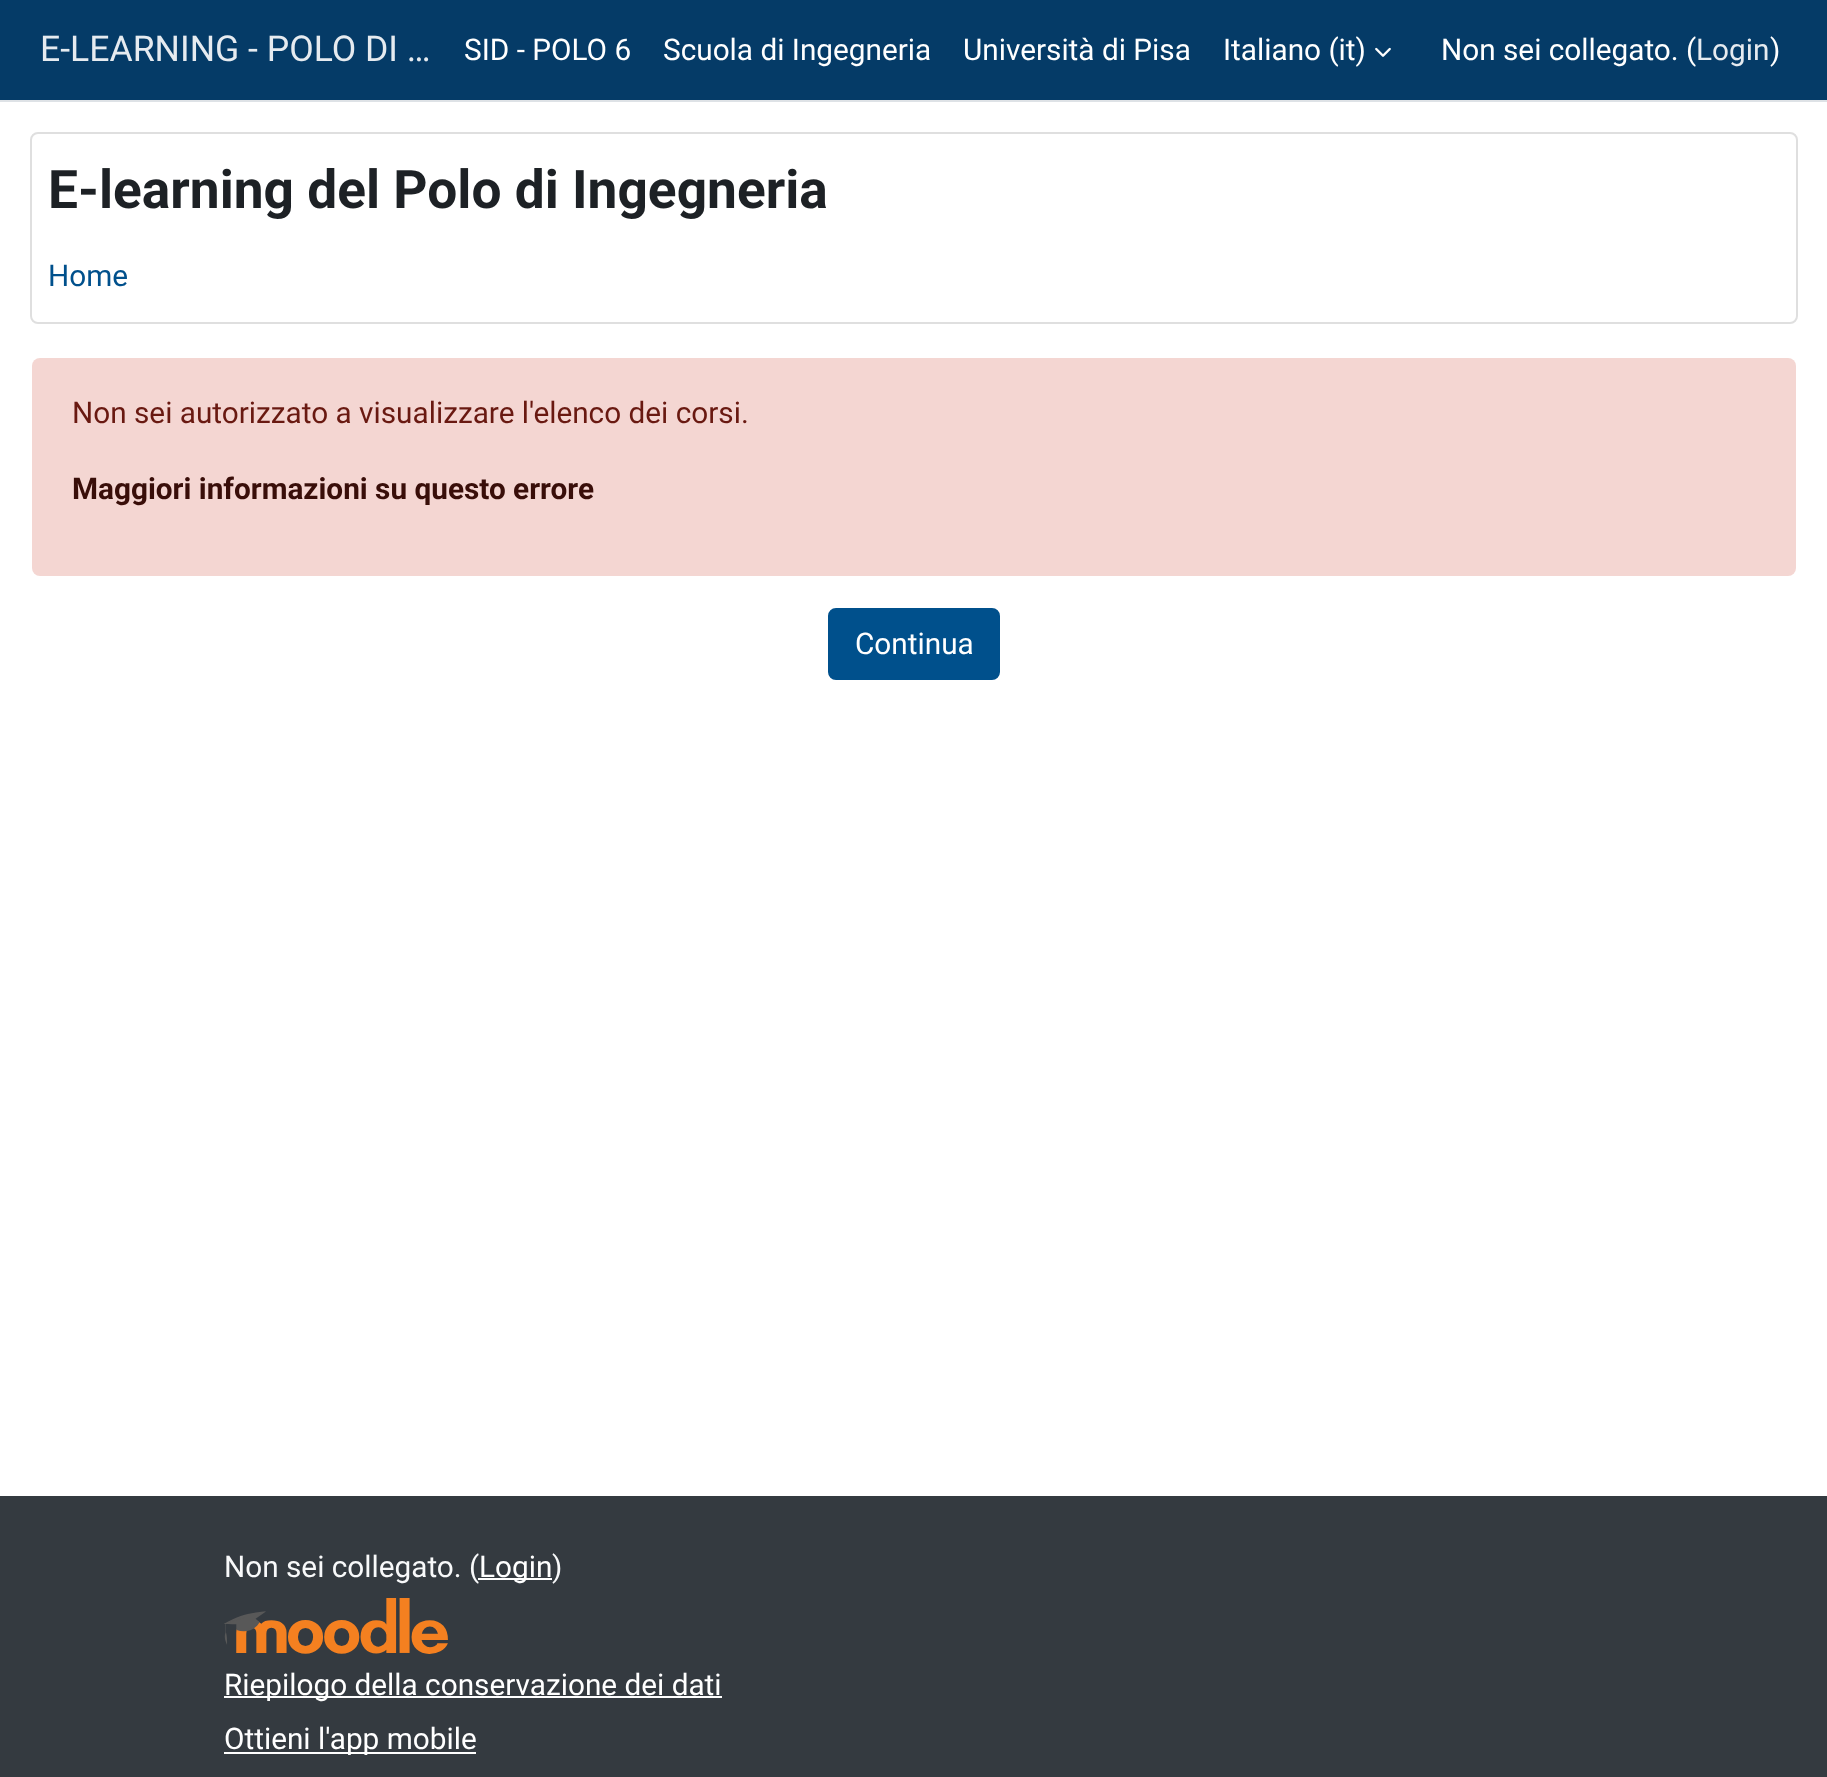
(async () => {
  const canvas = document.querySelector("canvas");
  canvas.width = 1827;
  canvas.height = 1777;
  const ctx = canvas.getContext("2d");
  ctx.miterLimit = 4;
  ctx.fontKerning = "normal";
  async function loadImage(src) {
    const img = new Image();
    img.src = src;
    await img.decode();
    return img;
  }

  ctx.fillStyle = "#ffffff";
  ctx.fillRect(0, 0, 1827, 1777);
  ctx.fillStyle = "#053b67";
  ctx.fillRect(0, 0, 1827, 100);
  ctx.fillStyle = "#dee2e6";
  ctx.fillRect(0, 100, 1827, 2);
  ctx.drawImage(await loadImage("img/1.png"), 1375, 47, 16, 10);
  ctx.beginPath();
  ctx.roundRect(31, 133, 1766, 190, 7);
  ctx.strokeStyle = "#dfdfdf";
  ctx.lineWidth = 2;
  ctx.stroke();
  ctx.fillStyle = "#f4d6d2";
  ctx.beginPath();
  ctx.roundRect(32, 358, 1764, 218, 8);
  ctx.fill();
  ctx.fillStyle = "#00508c";
  ctx.beginPath();
  ctx.roundRect(829, 609, 170, 70, 7);
  ctx.fill();
  ctx.strokeStyle = "#00508c";
  ctx.stroke();
  ctx.fillStyle = "#343a40";
  ctx.fillRect(0, 1496, 1827, 281);
  ctx.drawImage(await loadImage("img/2.png"), 224, 1598, 224, 56);
  ctx.fillStyle = "#ffffff";
  ctx.fillRect(224, 1696, 498, 2);
  ctx.fillRect(224, 1752, 252, 2);
  ctx.font = "35.6px Roboto";
  ctx.fillStyle = "#e6ebf0";
  ctx.fillText("E-LEARNING - POLO DI …", 40, 61);
  ctx.font = "29.75px Roboto";
  ctx.fillStyle = "#ffffff";
  for (const [text, x, y] of [
    ["SID - POLO 6", 464, 60],
    ["Scuola di Ingegneria", 663, 60],
    ["Università di Pisa", 963, 60],
    ["Italiano (it)", 1223, 60],
    ["Non sei collegato. (", 1441, 60],
  ]) {
    ctx.fillText(text, x, y);
  }
  ctx.fillStyle = "#e6ebf0";
  ctx.fillText("Login", 1696, 60);
  ctx.fillStyle = "#ffffff";
  ctx.fillText(")", 1770, 60);
  ctx.font = "bold 53.25px Roboto";
  ctx.fillStyle = "#1d2125";
  ctx.fillText("E-learning del Polo di Ingegneria", 48, 208);
  ctx.font = "29.75px Roboto";
  ctx.fillStyle = "#00508c";
  ctx.fillText("Home", 48, 286);
  ctx.fillStyle = "#691911";
  ctx.fillText("Non sei autorizzato a visualizzare l'elenco dei corsi.", 72, 423);
  ctx.font = "bold 29.75px Roboto";
  ctx.fillStyle = "#390e09";
  ctx.fillText("Maggiori informazioni su questo errore", 72, 499);
  ctx.font = "29.75px Roboto";
  ctx.fillStyle = "#ffffff";
  ctx.fillText("Continua", 855, 654);
  ctx.fillStyle = "#f8f9fa";
  ctx.fillText("Non sei collegato. (", 224, 1577);
  ctx.fillStyle = "#ffffff";
  ctx.fillRect(478, 1578, 74, 2);
  ctx.fillText("Login", 479, 1577);
  ctx.fillStyle = "#f8f9fa";
  ctx.fillText(")", 552, 1577);
  ctx.fillStyle = "#ffffff";
  ctx.fillText("Riepilogo della conservazione dei dati", 224, 1695);
  ctx.fillText("Ottieni l'app mobile", 224, 1749);
})();
